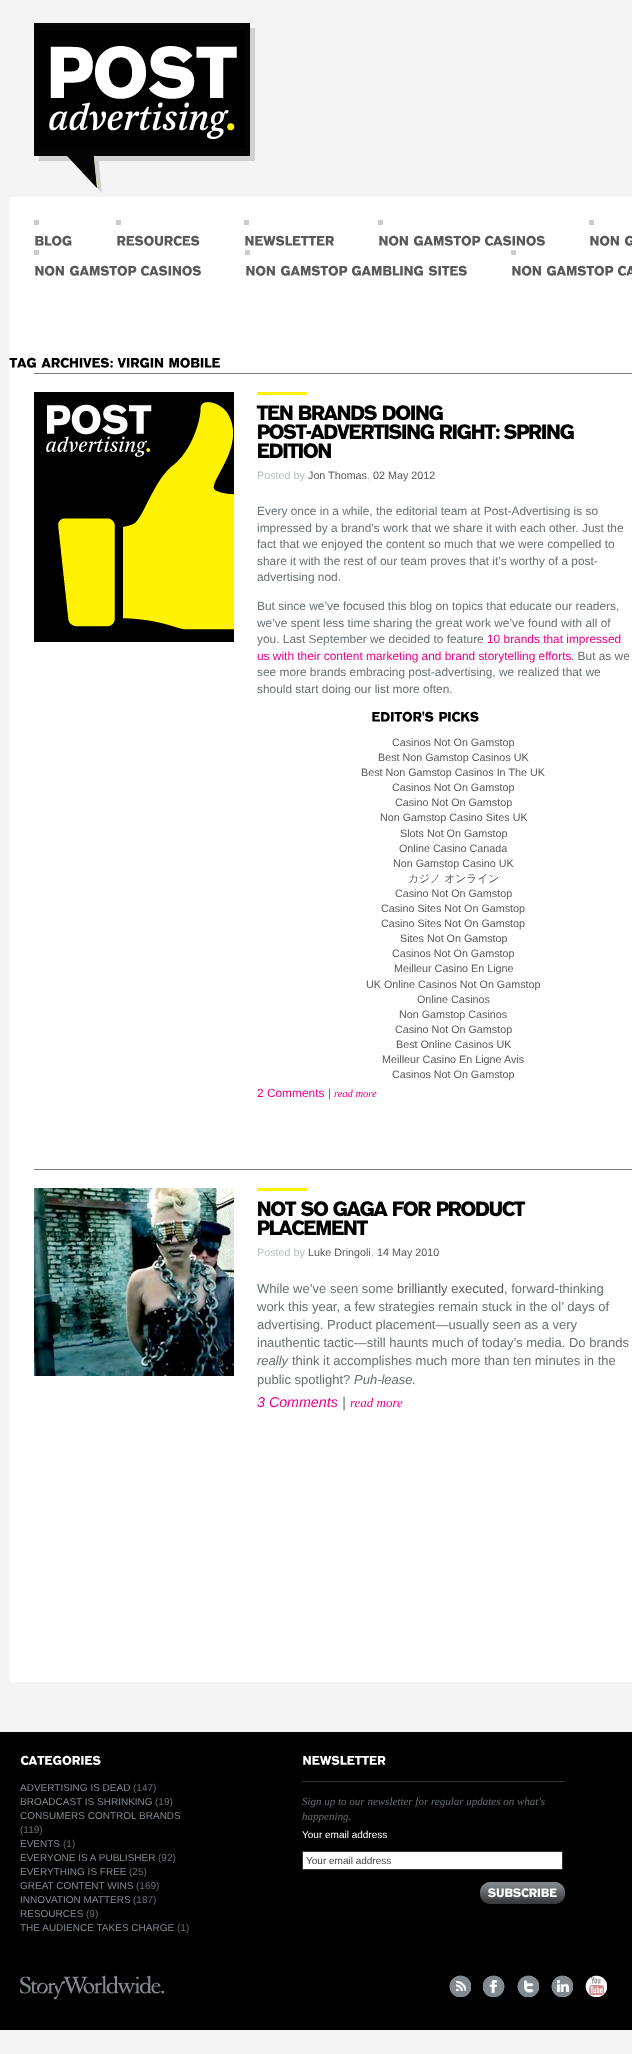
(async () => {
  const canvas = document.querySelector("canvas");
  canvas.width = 632;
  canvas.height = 2054;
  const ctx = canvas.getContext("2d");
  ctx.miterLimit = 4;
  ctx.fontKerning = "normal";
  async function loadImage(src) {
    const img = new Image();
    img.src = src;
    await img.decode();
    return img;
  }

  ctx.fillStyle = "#f4f4f5";
  ctx.fillRect(0, 0, 632, 2054);
  ctx.drawImage(await loadImage("img/1.png"), 34, 23, 221, 170);
  ctx.fillStyle = "#ffffff";
  ctx.fillRect(9, 197, 623, 1485);
  ctx.fillStyle = "#cccccc";
  ctx.fillRect(34, 220, 5, 5);
  ctx.drawImage(await loadImage("img/2.png"), 35, 235, 37, 11);
  ctx.fillRect(116, 220, 5, 5);
  ctx.drawImage(await loadImage("img/3.png"), 117, 235, 83, 11);
  ctx.fillRect(244, 220, 5, 5);
  ctx.drawImage(await loadImage("img/4.png"), 245, 235, 89, 11);
  ctx.fillRect(378, 220, 5, 5);
  ctx.drawImage(await loadImage("img/5.png"), 379, 235, 29, 11);
  ctx.drawImage(await loadImage("img/6.png"), 413, 235, 68, 11);
  ctx.drawImage(await loadImage("img/7.png"), 484, 235, 61, 11);
  ctx.fillRect(589, 220, 5, 5);
  ctx.drawImage(await loadImage("img/5.png"), 590, 235, 29, 11);
  ctx.drawImage(await loadImage("img/8.png"), 624, 235, 8, 11);
  ctx.fillRect(34, 250, 5, 5);
  ctx.drawImage(await loadImage("img/5.png"), 35, 265, 29, 11);
  ctx.drawImage(await loadImage("img/6.png"), 69, 265, 68, 11);
  ctx.drawImage(await loadImage("img/7.png"), 140, 265, 61, 11);
  ctx.fillRect(245, 250, 5, 5);
  ctx.drawImage(await loadImage("img/5.png"), 246, 265, 29, 11);
  ctx.drawImage(await loadImage("img/6.png"), 280, 265, 68, 11);
  ctx.drawImage(await loadImage("img/9.png"), 351, 265, 72, 11);
  ctx.drawImage(await loadImage("img/10.png"), 428, 265, 39, 11);
  ctx.fillRect(511, 250, 5, 5);
  ctx.drawImage(await loadImage("img/5.png"), 512, 265, 29, 11);
  ctx.drawImage(await loadImage("img/6.png"), 546, 265, 68, 11);
  ctx.drawImage(await loadImage("img/11.png"), 617, 265, 15, 11);
  ctx.drawImage(await loadImage("img/12.png"), 9, 357, 27, 11);
  ctx.drawImage(await loadImage("img/13.png"), 41, 357, 72, 11);
  ctx.drawImage(await loadImage("img/14.png"), 117, 357, 47, 11);
  ctx.drawImage(await loadImage("img/15.png"), 169, 357, 52, 11);
  ctx.fillStyle = "#7f7f7f";
  ctx.fillRect(34, 373, 598, 1);
  ctx.drawImage(await loadImage("img/16.png"), 34, 392, 200, 250);
  ctx.fillStyle = "#fef200";
  ctx.fillRect(257, 392, 50, 3);
  ctx.drawImage(await loadImage("img/17.png"), 256, 405, 37, 15);
  ctx.drawImage(await loadImage("img/18.png"), 299, 405, 78, 16);
  ctx.drawImage(await loadImage("img/19.png"), 383, 405, 60, 16);
  ctx.drawImage(await loadImage("img/20.png"), 258, 424, 176, 16);
  ctx.drawImage(await loadImage("img/21.png"), 440, 424, 60, 16);
  ctx.drawImage(await loadImage("img/22.png"), 504, 424, 70, 16);
  ctx.drawImage(await loadImage("img/23.png"), 258, 443, 73, 16);
  ctx.drawImage(await loadImage("img/24.png"), 372, 711, 62, 11);
  ctx.drawImage(await loadImage("img/25.png"), 439, 711, 40, 11);
  ctx.fillStyle = "#7f7f7f";
  ctx.fillRect(34, 1169, 598, 1);
  ctx.drawImage(await loadImage("img/26.png"), 34, 1188, 200, 188);
  ctx.fillStyle = "#fef200";
  ctx.fillRect(257, 1188, 50, 3);
  ctx.drawImage(await loadImage("img/27.png"), 258, 1201, 39, 16);
  ctx.drawImage(await loadImage("img/28.png"), 301, 1201, 28, 16);
  ctx.drawImage(await loadImage("img/29.png"), 333, 1201, 55, 16);
  ctx.drawImage(await loadImage("img/30.png"), 393, 1201, 38, 16);
  ctx.drawImage(await loadImage("img/31.png"), 437, 1201, 89, 16);
  ctx.drawImage(await loadImage("img/32.png"), 258, 1220, 110, 16);
  ctx.fillStyle = "#000000";
  ctx.fillRect(0, 1732, 632, 298);
  ctx.drawImage(await loadImage("img/33.png"), 20, 1755, 81, 10);
  ctx.fillStyle = "#333333";
  ctx.fillRect(302, 1781, 263, 1);
  ctx.drawImage(await loadImage("img/34.png"), 303, 1755, 83, 10);
  ctx.fillStyle = "#ffffff";
  ctx.beginPath();
  ctx.rect(302.5, 1851.5, 260, 18);
  ctx.fill();
  ctx.strokeStyle = "#333333";
  ctx.stroke();
  ctx.drawImage(await loadImage("img/35.png"), 480, 1882, 85, 22);
  ctx.drawImage(await loadImage("img/36.png"), 20, 1975, 144, 25);
  ctx.drawImage(await loadImage("img/37.png"), 449, 1975, 22, 22);
  ctx.drawImage(await loadImage("img/38.png"), 483, 1975, 22, 22);
  ctx.drawImage(await loadImage("img/39.png"), 517, 1975, 22, 22);
  ctx.drawImage(await loadImage("img/40.png"), 551, 1975, 22, 22);
  ctx.drawImage(await loadImage("img/41.png"), 585, 1975, 22, 22);
  ctx.font = "10.75px Liberation Sans";
  ctx.fillStyle = "#babec1";
  ctx.fillText("Posted by", 257, 479);
  ctx.fillStyle = "#595959";
  ctx.fillText("Jon Thomas", 308, 479);
  ctx.fillStyle = "#babec1";
  ctx.fillText(",", 367, 479);
  ctx.fillStyle = "#595959";
  ctx.fillText("02 May 2012", 373, 479);
  ctx.font = "11.9px Liberation Sans";
  ctx.fillStyle = "#696f73";
  for (const [text, x, y] of [
    ["Every once in a while, the editorial team at Post-Advertising is so", 257, 515],
    ["impressed by a brand’s work that we share it with each other. Just the", 257, 532],
    ["fact that we enjoyed the content so much that we were compelled to", 257, 548],
    ["share it with the rest of our team proves that it’s worthy of a post-", 257, 565],
    ["advertising nod.", 257, 581],
    ["But since we’ve focused this blog on topics that educate our readers,", 257, 610],
    ["we’ve spent less time sharing the great work we’ve found with all of", 257, 627],
    ["you. Last September we decided to feature", 257, 643],
  ]) {
    ctx.fillText(text, x, y);
  }
  ctx.fillStyle = "#ec008c";
  ctx.fillText("10 brands that impressed", 487, 643);
  ctx.fillText("us with their content marketing and brand storytelling efforts", 257, 660);
  ctx.fillStyle = "#696f73";
  for (const [text, x, y] of [
    [". But as we", 571, 660],
    ["see more brands embracing post-advertising, we realized that we", 257, 676],
    ["should start doing our list more often.", 257, 693],
  ]) {
    ctx.fillText(text, x, y);
  }
  ctx.font = "10.75px Liberation Sans";
  ctx.fillStyle = "#595959";
  for (const [text, x, y] of [
    ["Casinos Not On Gamstop", 392, 746],
    ["Best Non Gamstop Casinos UK", 378, 761],
    ["Best Non Gamstop Casinos In The UK", 361, 776],
    ["Casinos Not On Gamstop", 392, 791],
    ["Casino Not On Gamstop", 395, 806],
    ["Non Gamstop Casino Sites UK", 380, 821],
    ["Slots Not On Gamstop", 400, 837],
    ["Online Casino Canada", 399, 852],
    ["Non Gamstop Casino UK", 393, 867],
  ]) {
    ctx.fillText(text, x, y);
  }
  ctx.font = "500 10.75px WenQuanYi Zen Hei";
  ctx.fillText("カジノ オンライン", 408, 882);
  ctx.font = "10.75px Liberation Sans";
  for (const [text, x, y] of [
    ["Casino Not On Gamstop", 395, 897],
    ["Casino Sites Not On Gamstop", 381, 912],
    ["Casino Sites Not On Gamstop", 381, 927],
    ["Sites Not On Gamstop", 400, 942],
    ["Casinos Not On Gamstop", 392, 957],
    ["Meilleur Casino En Ligne", 394, 972],
    ["UK Online Casinos Not On Gamstop", 366, 988],
    ["Online Casinos", 417, 1003],
    ["Non Gamstop Casinos", 399, 1018],
    ["Casino Not On Gamstop", 395, 1033],
    ["Best Online Casinos UK", 396, 1048],
    ["Meilleur Casino En Ligne Avis", 382, 1063],
    ["Casinos Not On Gamstop", 392, 1078],
  ]) {
    ctx.fillText(text, x, y);
  }
  ctx.font = "11.9px Liberation Sans";
  ctx.fillStyle = "#ec008c";
  ctx.fillText("2 Comments", 257, 1097);
  ctx.fillStyle = "#696f73";
  ctx.fillText("|", 328, 1097);
  ctx.font = "italic 10.5px Liberation Serif";
  ctx.fillStyle = "#ec008c";
  ctx.fillText("read more", 334, 1097);
  ctx.font = "10.75px Liberation Sans";
  ctx.fillStyle = "#babec1";
  ctx.fillText("Posted by", 257, 1256);
  ctx.fillStyle = "#595959";
  ctx.fillText("Luke Dringoli", 308, 1256);
  ctx.fillStyle = "#babec1";
  ctx.fillText(",", 371, 1256);
  ctx.fillStyle = "#595959";
  ctx.fillText("14 May 2010", 377, 1256);
  ctx.font = "13px Liberation Sans";
  ctx.fillStyle = "#696f73";
  ctx.fillText("While we’ve seen some", 257, 1293);
  ctx.fillStyle = "#595959";
  ctx.fillText("brilliantly executed", 397, 1293);
  ctx.fillStyle = "#696f73";
  for (const [text, x, y] of [
    [", forward-thinking", 504, 1293],
    ["work this year, a few strategies remain stuck in the ol’ days of", 257, 1311],
    ["advertising. Product placement—usually seen as a very", 257, 1329],
    ["inauthentic tactic—still haunts much of today’s media. Do brands", 257, 1347],
  ]) {
    ctx.fillText(text, x, y);
  }
  ctx.font = "italic 13px Liberation Sans";
  ctx.fillText("really", 257, 1365);
  ctx.font = "13px Liberation Sans";
  ctx.fillText("think it accomplishes much more than ten minutes in the", 292, 1365);
  ctx.fillText("public spotlight?", 257, 1384);
  ctx.font = "italic 13px Liberation Sans";
  ctx.fillText("Puh-lease.", 354, 1384);
  ctx.font = "italic 14.25px Liberation Sans";
  ctx.fillStyle = "#ec008c";
  ctx.fillText("3 Comments", 257, 1407);
  ctx.fillStyle = "#696f73";
  ctx.fillText("|", 342, 1407);
  ctx.font = "italic 13px Liberation Serif";
  ctx.fillStyle = "#ec008c";
  ctx.fillText("read more", 350, 1407);
  ctx.font = "10px Liberation Sans";
  ctx.fillStyle = "#828a8f";
  ctx.fillText("ADVERTISING IS DEAD", 20, 1791);
  ctx.fillStyle = "#696f73";
  ctx.fillText("(147)", 133, 1791);
  ctx.fillStyle = "#828a8f";
  ctx.fillText("BROADCAST IS SHRINKING", 20, 1805);
  ctx.fillStyle = "#696f73";
  ctx.fillText("(19)", 155, 1805);
  ctx.fillStyle = "#828a8f";
  ctx.fillText("CONSUMERS CONTROL BRANDS", 20, 1819);
  ctx.fillStyle = "#696f73";
  ctx.fillText("(119)", 20, 1833);
  ctx.fillStyle = "#828a8f";
  ctx.fillText("EVENTS", 20, 1847);
  ctx.fillStyle = "#696f73";
  ctx.fillText("(1)", 63, 1847);
  ctx.fillStyle = "#828a8f";
  ctx.fillText("EVERYONE IS A PUBLISHER", 20, 1861);
  ctx.fillStyle = "#696f73";
  ctx.fillText("(92)", 158, 1861);
  ctx.fillStyle = "#828a8f";
  ctx.fillText("EVERYTHING IS FREE", 20, 1875);
  ctx.fillStyle = "#696f73";
  ctx.fillText("(25)", 129, 1875);
  ctx.fillStyle = "#828a8f";
  ctx.fillText("GREAT CONTENT WINS", 20, 1889);
  ctx.fillStyle = "#696f73";
  ctx.fillText("(169)", 136, 1889);
  ctx.fillStyle = "#828a8f";
  ctx.fillText("INNOVATION MATTERS", 20, 1903);
  ctx.fillStyle = "#696f73";
  ctx.fillText("(187)", 133, 1903);
  ctx.fillStyle = "#828a8f";
  ctx.fillText("RESOURCES", 20, 1917);
  ctx.fillStyle = "#696f73";
  ctx.fillText("(9)", 86, 1917);
  ctx.fillStyle = "#828a8f";
  ctx.fillText("THE AUDIENCE TAKES CHARGE", 20, 1931);
  ctx.fillStyle = "#696f73";
  ctx.fillText("(1)", 177, 1931);
  ctx.font = "italic 11px Liberation Serif";
  ctx.fillText("Sign up to our newsletter for regular updates on what's", 302, 1805);
  ctx.fillText("happening.", 302, 1820);
  ctx.font = "10px Liberation Sans";
  ctx.fillStyle = "#ffffff";
  ctx.fillText("Your email address", 302, 1838);
  ctx.fillStyle = "#444444";
  ctx.fillText("Your email address", 306, 1864);
})();
